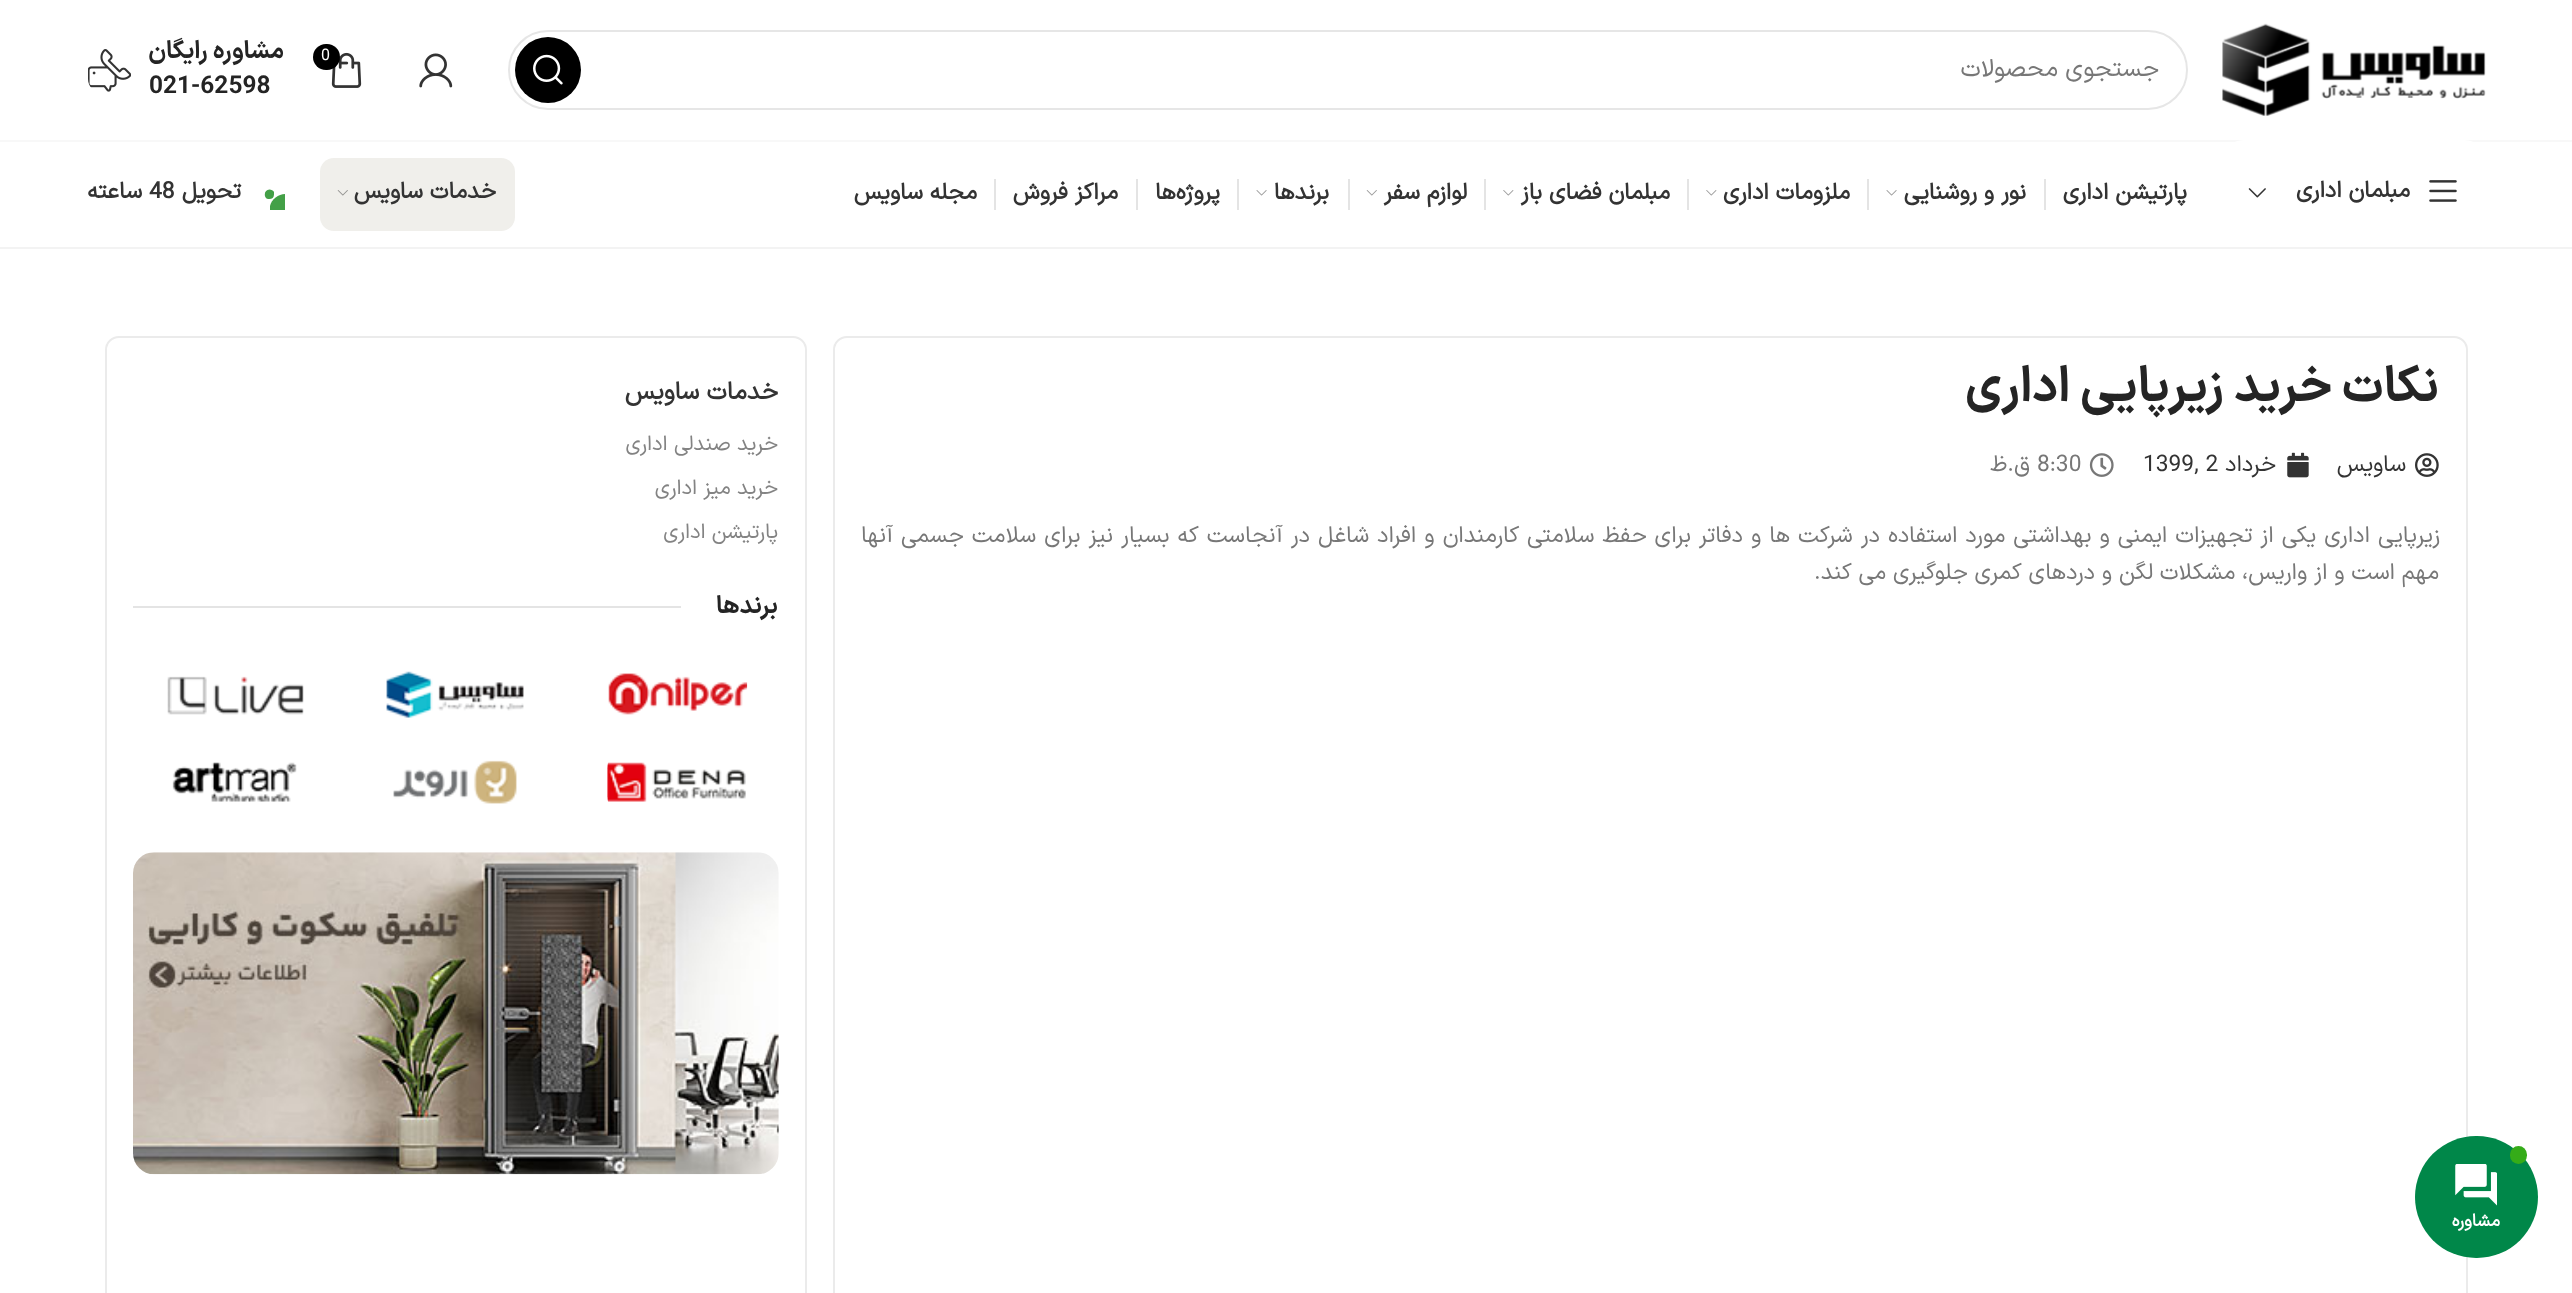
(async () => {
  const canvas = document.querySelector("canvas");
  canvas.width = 2572;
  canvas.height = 1293;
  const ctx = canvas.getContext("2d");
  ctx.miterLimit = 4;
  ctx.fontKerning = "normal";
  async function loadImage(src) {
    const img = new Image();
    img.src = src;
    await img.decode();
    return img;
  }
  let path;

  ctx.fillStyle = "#ffffff";
  ctx.fillRect(0, 0, 2572, 1293);
  ctx.fillStyle = "#f8f8f8";
  ctx.fillRect(0, 140, 2572, 2);
  ctx.drawImage(await loadImage("img/1.png"), 2222, 23, 264, 93);
  ctx.beginPath();
  ctx.roundRect(509, 31, 1678, 78, 39);
  ctx.strokeStyle = "#e6e6e6";
  ctx.lineWidth = 2;
  ctx.stroke();
  ctx.fillStyle = "#000000";
  ctx.beginPath();
  ctx.arc(548, 70, 33, 0, Math.PI * 2);
  ctx.fill();
  ctx.drawImage(await loadImage("img/2.png"), 533, 54, 30, 31);
  ctx.drawImage(await loadImage("img/3.png"), 419, 53, 34, 35);
  ctx.drawImage(await loadImage("img/4.png"), 331, 52, 31, 36);
  ctx.beginPath();
  ctx.roundRect(313, 44, 27, 26, 13);
  ctx.fill();
  ctx.drawImage(await loadImage("img/5.png"), 88, 49, 43, 43);
  ctx.fillStyle = "#f3f3f3";
  ctx.fillRect(0, 247, 2572, 2);
  ctx.fillStyle = "#ffffff";
  ctx.beginPath();
  ctx.roundRect(2223, 140, 262, 105, [21, 21, 0, 0]);
  ctx.fill();
  ctx.drawImage(await loadImage("img/6.png"), 2429, 180, 28, 22);
  ctx.drawImage(await loadImage("img/7.png"), 2248, 188, 18, 10);
  ctx.fillStyle = "#e4e4e4";
  ctx.fillRect(2044, 179, 2, 31);
  ctx.drawImage(await loadImage("img/8.png"), 1886, 190, 11, 6);
  ctx.fillRect(1867, 179, 2, 31);
  ctx.drawImage(await loadImage("img/9.png"), 1706, 190, 11, 6);
  ctx.fillRect(1687, 179, 2, 31);
  ctx.drawImage(await loadImage("img/9.png"), 1503, 190, 11, 6);
  ctx.fillRect(1484, 179, 2, 31);
  ctx.drawImage(await loadImage("img/10.png"), 1366, 190, 11, 6);
  ctx.fillRect(1348, 179, 2, 31);
  ctx.drawImage(await loadImage("img/8.png"), 1256, 190, 11, 6);
  for (const [x, y, w, h, color] of [
    [1237, 179, 2, 31, "#e4e4e4"],
    [1136, 179, 2, 31, "#e4e4e4"],
    [994, 179, 2, 31, "#e4e4e4"],
  ]) {
    ctx.fillStyle = color;
    ctx.fillRect(x, y, w, h);
  }
  ctx.fillStyle = "#f0efeb";
  ctx.beginPath();
  ctx.roundRect(320, 158, 195, 73, 14);
  ctx.fill();
  ctx.drawImage(await loadImage("img/11.png"), 337, 190, 11, 6);
  ctx.save();
  ctx.beginPath();
  ctx.rect(254, 179, 31, 31);
  ctx.clip();
  ctx.fillStyle = "#43a047";
  path = new Path2D("M285 194C306 194 306.5 225.5 285 226C278.5 226 271.5 221 270 214V206C271.5 199 278.5 194 285 194Z");
  ctx.fill(path);
  ctx.restore();
  ctx.fillStyle = "#43a047";
  path = new Path2D("M269.5 189.5C271 189.5 273.5 190.5 274 192V194.5C274 198 271.5 199.5 268 199C263.5 198.5 263.5 189.5 269.5 189.5Z");
  ctx.fill(path);
  ctx.beginPath();
  ctx.roundRect(834, 337, 1633, 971, 13);
  ctx.strokeStyle = "#ebebeb";
  ctx.stroke();
  ctx.drawImage(await loadImage("img/12.png"), 2415, 453, 24, 24);
  ctx.drawImage(await loadImage("img/13.png"), 2287, 452, 22, 26);
  ctx.drawImage(await loadImage("img/14.png"), 2089, 453, 25, 24);
  ctx.beginPath();
  ctx.roundRect(106, 337, 700, 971, 13);
  ctx.stroke();
  ctx.fillStyle = "#e4e4e4";
  ctx.fillRect(133, 606, 548, 2);
  ctx.drawImage(await loadImage("img/15.png"), 608, 673, 140, 42);
  ctx.drawImage(await loadImage("img/16.png"), 386, 671, 138, 47);
  ctx.drawImage(await loadImage("img/17.png"), 167, 676, 137, 39);
  ctx.drawImage(await loadImage("img/18.png"), 607, 762, 139, 40);
  ctx.drawImage(await loadImage("img/19.png"), 393, 760, 124, 44);
  ctx.drawImage(await loadImage("img/20.png"), 172, 762, 125, 40);
  ctx.drawImage(await loadImage("img/21.png"), 133, 852, 646, 323);
  ctx.fillStyle = "#008749";
  ctx.beginPath();
  ctx.roundRect(2415, 1136, 123, 122, 61);
  ctx.fill();
  ctx.fillStyle = "#35ac19";
  ctx.beginPath();
  ctx.roundRect(2510, 1146, 17, 18, 8.5);
  ctx.fill();
  ctx.drawImage(await loadImage("img/22.png"), 2455, 1164, 42, 42);
  ctx.direction = "rtl";
  ctx.font = "24.5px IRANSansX";
  ctx.fillStyle = "#777777";
  ctx.fillText("جستجوی محصولات", 2159, 76);
  ctx.direction = "ltr";
  ctx.font = "16px IRANSansX";
  ctx.fillStyle = "#ffffff";
  ctx.fillText("0", 321, 60);
  ctx.direction = "rtl";
  ctx.font = "bold 24.5px IRANSansX";
  ctx.fillStyle = "#242424";
  ctx.fillText("مشاوره رایگان", 284, 58);
  ctx.direction = "ltr";
  ctx.fillText("021-62598", 149, 93);
  ctx.direction = "rtl";
  ctx.font = "bold 22.75px 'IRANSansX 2'";
  ctx.fillStyle = "#333333";
  for (const [text, x, y] of [
    ["مبلمان اداری", 2410, 197],
    ["پارتیشن اداری", 2187, 199],
    ["نور و روشنایی", 2026, 199],
    ["ملزومات اداری", 1850, 199],
    ["مبلمان فضای باز", 1670, 199],
    ["لوازم سفر", 1467, 199],
    ["برندها", 1329, 199],
    ["پروژه‌ها", 1220, 199],
    ["مراکز فروش", 1118, 199],
    ["مجله ساویس", 977, 199],
    ["خدمات ساویس", 496, 198],
    ["تحویل", 241, 198],
  ]) {
    ctx.fillText(text, x, y);
  }
  ctx.direction = "ltr";
  ctx.fillText("48", 149, 198);
  ctx.direction = "rtl";
  ctx.fillText("ساعته", 142, 198);
  ctx.font = "bold 49px IRANSansX";
  ctx.fillStyle = "#242424";
  ctx.fillText("نکات خرید زیرپایی اداری", 2439, 401);
  ctx.font = "22.75px IRANSansX";
  ctx.fillStyle = "#333333";
  ctx.fillText("ساویس", 2406, 471);
  ctx.fillText("خرداد", 2276, 471);
  ctx.direction = "ltr";
  ctx.fillText("1399, 2", 2143, 471);
  ctx.fillStyle = "#777777";
  ctx.fillText("8:30", 2037, 471);
  ctx.direction = "rtl";
  ctx.fillText("ق.ظ", 2030, 471);
  ctx.wordSpacing = "1.2px";
  ctx.fillText("زیرپایی اداری یکی از تجهیزات ایمنی و بهداشتی مورد استفاده در شرکت ها و دفاتر برای حفظ سلامتی کارمندان و افراد شاغل در آنجاست که بسیار نیز برای سلامت جسمی آنها", 2440, 542);
  ctx.wordSpacing = "0px";
  ctx.fillText("مهم است و از واریس، مشکلات لگن و دردهای کمری جلوگیری می کند.", 2439, 579);
  ctx.font = "bold 24.5px 'IRANSansX 2'";
  ctx.fillStyle = "#333333";
  ctx.fillText("خدمات ساویس", 778, 399);
  ctx.font = "21px IRANSansX";
  ctx.fillStyle = "#838383";
  for (const [text, x, y] of [
    ["خرید صندلی اداری", 778, 450],
    ["خرید میز اداری", 778, 494],
    ["پارتیشن اداری", 778, 538],
  ]) {
    ctx.fillText(text, x, y);
  }
  ctx.font = "bold 24.5px IRANSansX";
  ctx.fillStyle = "#242424";
  ctx.fillText("برندها", 778, 613);
  ctx.font = "bold 17.5px 'IRANSansX 2'";
  ctx.fillStyle = "#ffffff";
  ctx.fillText("مشاوره", 2500, 1226);
})();
